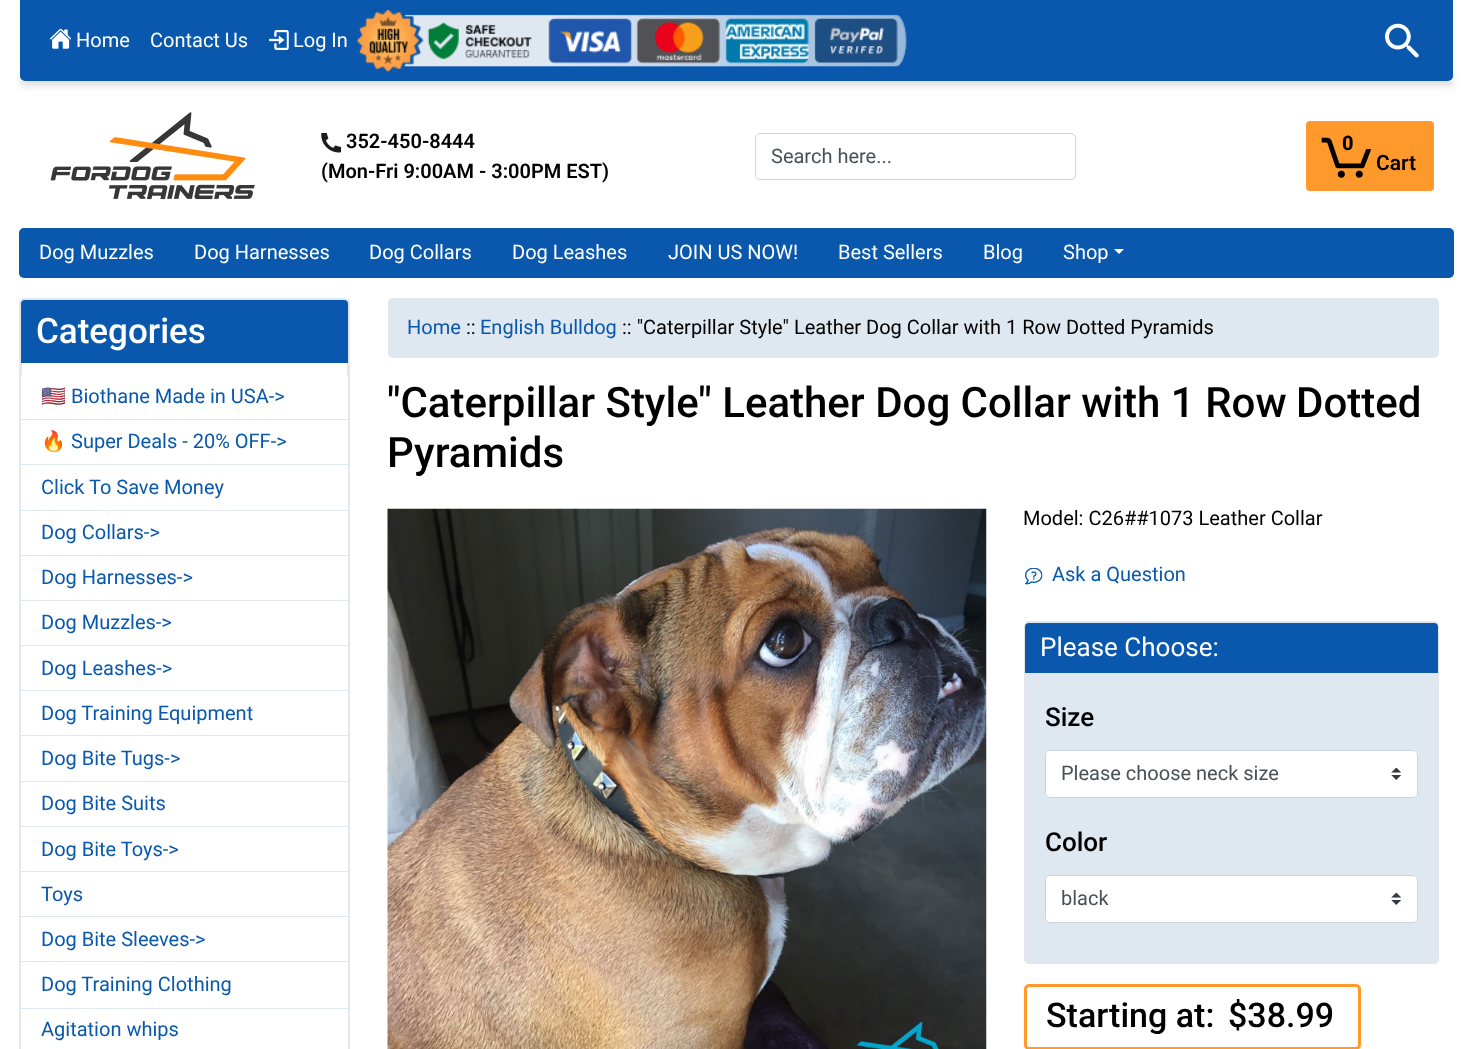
(async () => {
  const canvas = document.querySelector("canvas");
  canvas.width = 1472;
  canvas.height = 1049;
  const ctx = canvas.getContext("2d");
  ctx.miterLimit = 4;
  ctx.fontKerning = "normal";
  async function loadImage(src) {
    const img = new Image();
    img.src = src;
    await img.decode();
    return img;
  }
  let path;

  ctx.fillStyle = "#ffffff";
  ctx.fillRect(0, 0, 1472, 1049);
  ctx.fillStyle = "#0958ad";
  ctx.beginPath();
  ctx.roundRect(20, 0, 1433, 81, [0, 0, 5, 5]);
  ctx.fill();
  ctx.drawImage(await loadImage("img/1.png"), 50, 29, 21, 20);
  ctx.drawImage(await loadImage("img/2.png"), 269, 30, 20, 20);
  ctx.drawImage(await loadImage("img/3.png"), 357, 10, 550, 62);
  ctx.drawImage(await loadImage("img/4.png"), 1385, 23, 34, 35);
  ctx.save();
  path = new Path2D("M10 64H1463V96H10ZM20 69H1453V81H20Z");
  ctx.clip(path, "evenodd");
  ctx.fillStyle = "rgba(0, 0, 0, 0.12)";
  ctx.filter = "blur(3px)";
  ctx.beginPath();
  ctx.rect(20, 74, 1433, 12);
  ctx.fill();
  ctx.filter = "none";
  ctx.restore();
  ctx.drawImage(await loadImage("img/5.png"), 50, 112, 205, 88);
  ctx.drawImage(await loadImage("img/6.png"), 321, 133, 20, 20);
  ctx.beginPath();
  ctx.roundRect(755.5, 133.5, 320, 46, 4.5);
  ctx.strokeStyle = "#ced4da";
  ctx.stroke();
  ctx.fillStyle = "#ff992b";
  ctx.beginPath();
  ctx.roundRect(1307.5, 122.5, 125, 67, 2.5);
  ctx.fill();
  ctx.strokeStyle = "#ff992b";
  ctx.lineWidth = 3;
  ctx.stroke();
  ctx.drawImage(await loadImage("img/7.png"), 1321, 137, 50, 41);
  ctx.fillStyle = "#0958ad";
  ctx.beginPath();
  ctx.roundRect(19, 228, 1435, 50, 5);
  ctx.fill();
  ctx.fillStyle = "#ffffff";
  path = new Path2D("M1114 249H1124L1119 254Z");
  ctx.fill(path);
  ctx.beginPath();
  ctx.roundRect(20.5, 299.5, 328, 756, 3.5);
  ctx.strokeStyle = "#dfe7f1";
  ctx.stroke();
  ctx.fillStyle = "#0958ad";
  ctx.beginPath();
  ctx.roundRect(21, 300, 327, 63, [4, 4, 0, 0]);
  ctx.fill();
  for (const [x, y, w, h, color] of [
    [21, 375, 327, 44, "#ffffff"],
    [21, 419, 327, 1, "#dfe7f1"],
    [21, 420, 327, 44, "#ffffff"],
    [21, 464, 327, 1, "#dfe7f1"],
    [21, 465, 327, 45, "#ffffff"],
    [21, 510, 327, 1, "#dfe7f1"],
    [21, 511, 327, 44, "#ffffff"],
    [21, 555, 327, 1, "#dfe7f1"],
    [21, 556, 327, 44, "#ffffff"],
    [21, 600, 327, 1, "#dfe7f1"],
    [21, 601, 327, 44, "#ffffff"],
    [21, 645, 327, 1, "#dfe7f1"],
    [21, 646, 327, 44, "#ffffff"],
    [21, 690, 327, 1, "#dfe7f1"],
    [21, 691, 327, 44, "#ffffff"],
    [21, 735, 327, 1, "#dfe7f1"],
    [21, 736, 327, 272, "#ffffff"],
    [21, 781, 327, 1, "#dfe7f1"],
    [21, 826, 327, 1, "#dfe7f1"],
    [21, 871, 327, 1, "#dfe7f1"],
    [21, 916, 327, 1, "#dfe7f1"],
    [21, 961, 327, 1, "#dfe7f1"],
    [21, 1008, 327, 1, "#dfe7f1"],
    [21, 1009, 327, 40, "#ffffff"],
  ]) {
    ctx.fillStyle = color;
    ctx.fillRect(x, y, w, h);
  }
  ctx.fillStyle = "#dfe7f1";
  ctx.beginPath();
  ctx.roundRect(388, 298, 1051, 60, 5);
  ctx.fill();
  ctx.drawImage(await loadImage("img/8.png"), 387, 508, 600, 541);
  ctx.drawImage(await loadImage("img/9.png"), 1025, 568, 18, 17);
  ctx.beginPath();
  ctx.roundRect(1024.5, 621.5, 414, 342, 4.5);
  ctx.fill();
  ctx.strokeStyle = "#e5e5e5";
  ctx.lineWidth = 1;
  ctx.stroke();
  ctx.fillStyle = "#0958ad";
  ctx.beginPath();
  ctx.roundRect(1025, 623, 413, 50, [4, 4, 0, 0]);
  ctx.fill();
  ctx.fillStyle = "#ffffff";
  ctx.beginPath();
  ctx.roundRect(1045, 750, 373, 48, 5);
  ctx.fill();
  ctx.drawImage(await loadImage("img/10.png"), 1391, 768, 10, 12);
  ctx.beginPath();
  ctx.roundRect(1045.5, 750.5, 372, 47, 4.5);
  ctx.strokeStyle = "#ced4da";
  ctx.stroke();
  ctx.beginPath();
  ctx.roundRect(1045, 875, 373, 48, 5);
  ctx.fill();
  ctx.drawImage(await loadImage("img/10.png"), 1391, 893, 10, 12);
  ctx.beginPath();
  ctx.roundRect(1045.5, 875.5, 372, 47, 4.5);
  ctx.stroke();
  ctx.beginPath();
  ctx.roundRect(1025.5, 985.5, 334, 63, 3.5);
  ctx.strokeStyle = "#ff992b";
  ctx.lineWidth = 3;
  ctx.stroke();
  ctx.font = "20px Roboto";
  for (const [text, x, y] of [
    ["Home", 76, 47],
    ["Contact Us", 150, 47],
    ["Log In", 293, 47],
  ]) {
    ctx.fillText(text, x, y);
  }
  ctx.font = "600 20px Roboto";
  ctx.fillStyle = "#000000";
  ctx.fillText("352-450-8444", 346, 148);
  ctx.fillText("(Mon-Fri 9:00AM - 3:00PM EST)", 321, 178);
  ctx.font = "20px Roboto";
  ctx.fillStyle = "#495057";
  ctx.fillText("Search here...", 771, 163);
  ctx.font = "800 20px Roboto";
  ctx.fillStyle = "#000000";
  ctx.fillText("0", 1342, 150);
  ctx.font = "600 21px Roboto";
  ctx.fillText("Cart", 1376, 170);
  ctx.font = "20px Roboto";
  ctx.fillStyle = "#ffffff";
  for (const [text, x, y] of [
    ["Dog Muzzles", 39, 259],
    ["Dog Harnesses", 194, 259],
    ["Dog Collars", 369, 259],
    ["Dog Leashes", 512, 259],
    ["JOIN US NOW!", 668, 259],
    ["Best Sellers", 838, 259],
    ["Blog", 983, 259],
    ["Shop", 1063, 259],
  ]) {
    ctx.fillText(text, x, y);
  }
  ctx.font = "500 35px Roboto";
  ctx.fillText("Categories", 36, 343);
  ctx.font = "20px Noto Color Emoji";
  ctx.fillStyle = "#0958ad";
  ctx.fillText("🇺🇸", 41, 403);
  ctx.font = "20px Roboto";
  ctx.fillText("Biothane Made in USA->", 71, 403);
  ctx.font = "20px Noto Color Emoji";
  ctx.fillText("🔥", 41, 448);
  ctx.font = "20px Roboto";
  for (const [text, x, y] of [
    ["Super Deals - 20% OFF->", 71, 448],
    ["Click To Save Money", 41, 494],
    ["Dog Collars->", 41, 539],
    ["Dog Harnesses->", 41, 584],
    ["Dog Muzzles->", 41, 629],
    ["Dog Leashes->", 41, 675],
    ["Dog Training Equipment", 41, 720],
    ["Dog Bite Tugs->", 41, 765],
    ["Dog Bite Suits", 41, 810],
    ["Dog Bite Toys->", 41, 856],
    ["Toys", 41, 901],
    ["Dog Bite Sleeves->", 41, 946],
    ["Dog Training Clothing", 41, 991],
    ["Agitation whips", 41, 1036],
    ["Home", 407, 334],
  ]) {
    ctx.fillText(text, x, y);
  }
  ctx.fillStyle = "#000000";
  ctx.fillText("::", 466, 334);
  ctx.fillStyle = "#0958ad";
  ctx.fillText("English Bulldog", 480, 334);
  ctx.fillStyle = "#000000";
  ctx.fillText(":: \"Caterpillar Style\" Leather Dog Collar with 1 Row Dotted Pyramids", 622, 334);
  ctx.font = "500 42px Roboto";
  for (const [text, x, y] of [
    ["\"Caterpillar Style\" Leather Dog Collar with 1 Row", 387, 417],
    ["Dotted", 1296, 417],
    ["Pyramids", 387, 467],
  ]) {
    ctx.fillText(text, x, y);
  }
  ctx.font = "20px Roboto";
  ctx.fillText("Model: C26##1073 Leather Collar", 1023, 525);
  ctx.fillStyle = "#0958ad";
  ctx.fillText("Ask a Question", 1052, 581);
  ctx.font = "26px Roboto";
  ctx.fillStyle = "#ffffff";
  ctx.fillText("Please Choose:", 1040, 656);
  ctx.font = "500 26px Roboto";
  ctx.fillStyle = "#000000";
  ctx.fillText("Size", 1045, 726);
  ctx.font = "20px Roboto";
  ctx.fillStyle = "#495057";
  ctx.fillText("Please choose neck size", 1061, 780);
  ctx.font = "500 26px Roboto";
  ctx.fillStyle = "#000000";
  ctx.fillText("Color", 1045, 851);
  ctx.font = "20px Roboto";
  ctx.fillStyle = "#495057";
  ctx.fillText("black", 1061, 905);
  ctx.font = "500 34px Roboto";
  ctx.fillStyle = "#000000";
  ctx.fillText("Starting at:", 1046, 1027);
  ctx.fillText("$38.99", 1228, 1027);
})();
